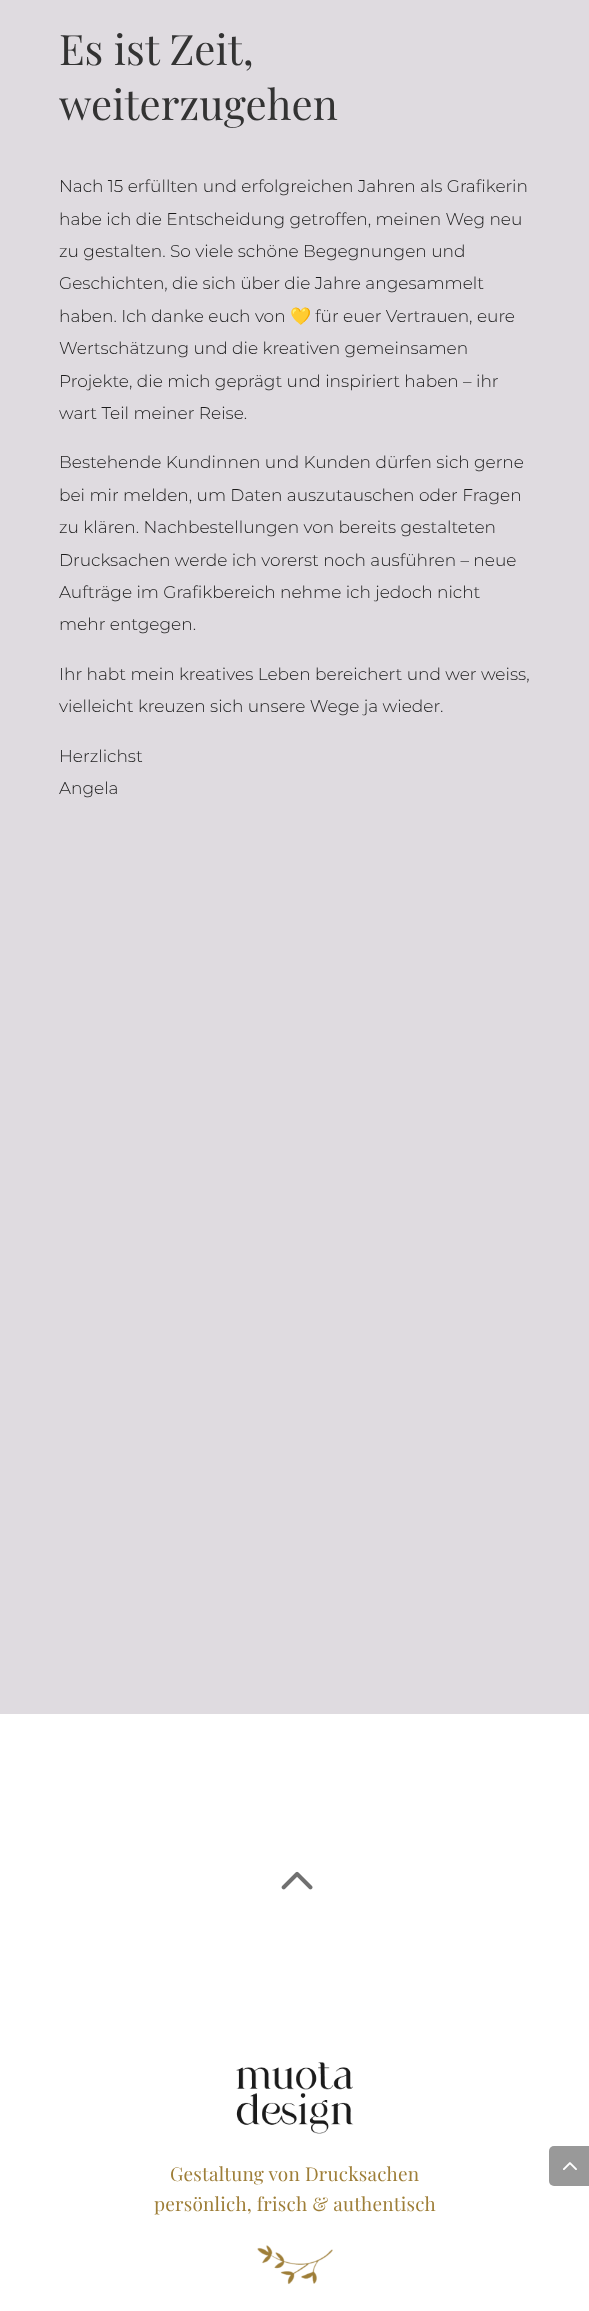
(async () => {
  const canvas = document.querySelector("canvas");
  canvas.width = 589;
  canvas.height = 2311;
  const ctx = canvas.getContext("2d");
  ctx.miterLimit = 4;
  ctx.fontKerning = "normal";
  async function loadImage(src) {
    const img = new Image();
    img.src = src;
    await img.decode();
    return img;
  }

  ctx.fillStyle = "#ffffff";
  ctx.fillRect(0, 0, 589, 2311);
  ctx.fillStyle = "#dfdbe0";
  ctx.fillRect(0, 0, 589, 1714);
  ctx.drawImage(await loadImage("img/1.png"), 281, 1871, 32, 19);
  ctx.drawImage(await loadImage("img/2.png"), 236, 2062, 118, 72);
  ctx.drawImage(await loadImage("img/3.png"), 257, 2245, 76, 40);
  ctx.fillStyle = "#999999";
  ctx.beginPath();
  ctx.roundRect(549, 2146, 40, 40, [5, 0, 0, 5]);
  ctx.fill();
  ctx.drawImage(await loadImage("img/4.png"), 563, 2162, 14, 8);
  ctx.font = "42px Playfair Display";
  ctx.fillStyle = "#333333";
  ctx.fillText("Es ist Zeit,", 59, 65);
  ctx.fillText("weiterzugehen", 59, 120);
  ctx.font = "100 17px Montserrat";
  ctx.fillStyle = "#1c1c1c";
  for (const [text, x, y] of [
    ["Nach 15 erfüllten und erfolgreichen Jahren als Grafikerin", 59, 192],
    ["habe ich die Entscheidung getroffen, meinen Weg neu", 59, 225],
    ["zu gestalten. So viele schöne Begegnungen und", 59, 257],
    ["Geschichten, die sich über die Jahre angesammelt", 59, 289],
    ["haben. Ich danke euch von", 59, 322],
  ]) {
    ctx.fillText(text, x, y);
  }
  ctx.font = "17px Noto Color Emoji";
  ctx.fillText("💛", 290, 322);
  ctx.font = "100 17px Montserrat";
  for (const [text, x, y] of [
    ["für euer Vertrauen, eure", 315, 322],
    ["Wertschätzung und die kreativen gemeinsamen", 59, 354],
    ["Projekte, die mich geprägt und inspiriert haben – ihr", 59, 387],
    ["wart Teil meiner Reise.", 59, 419],
    ["Bestehende Kundinnen und Kunden dürfen sich gerne", 59, 468],
    ["bei mir melden, um Daten auszutauschen oder Fragen", 59, 501],
    ["zu klären. Nachbestellungen von bereits gestalteten", 59, 533],
    ["Drucksachen werde ich vorerst noch ausführen – neue", 59, 566],
    ["Aufträge im Grafikbereich nehme ich jedoch nicht", 59, 598],
    ["mehr entgegen.", 59, 630],
    ["Ihr habt mein kreatives Leben bereichert und wer weiss,", 59, 680],
    ["vielleicht kreuzen sich unsere Wege ja wieder.", 59, 712],
    ["Herzlichst", 59, 762],
    ["Angela", 59, 794],
  ]) {
    ctx.fillText(text, x, y);
  }
  ctx.letterSpacing = "0.2px";
  ctx.font = "19px Playfair Display";
  ctx.fillStyle = "#9e7e38";
  ctx.fillText("Gestaltung von Drucksachen", 170, 2181);
  ctx.fillText("persönlich, frisch & authentisch", 154, 2211);
})();
